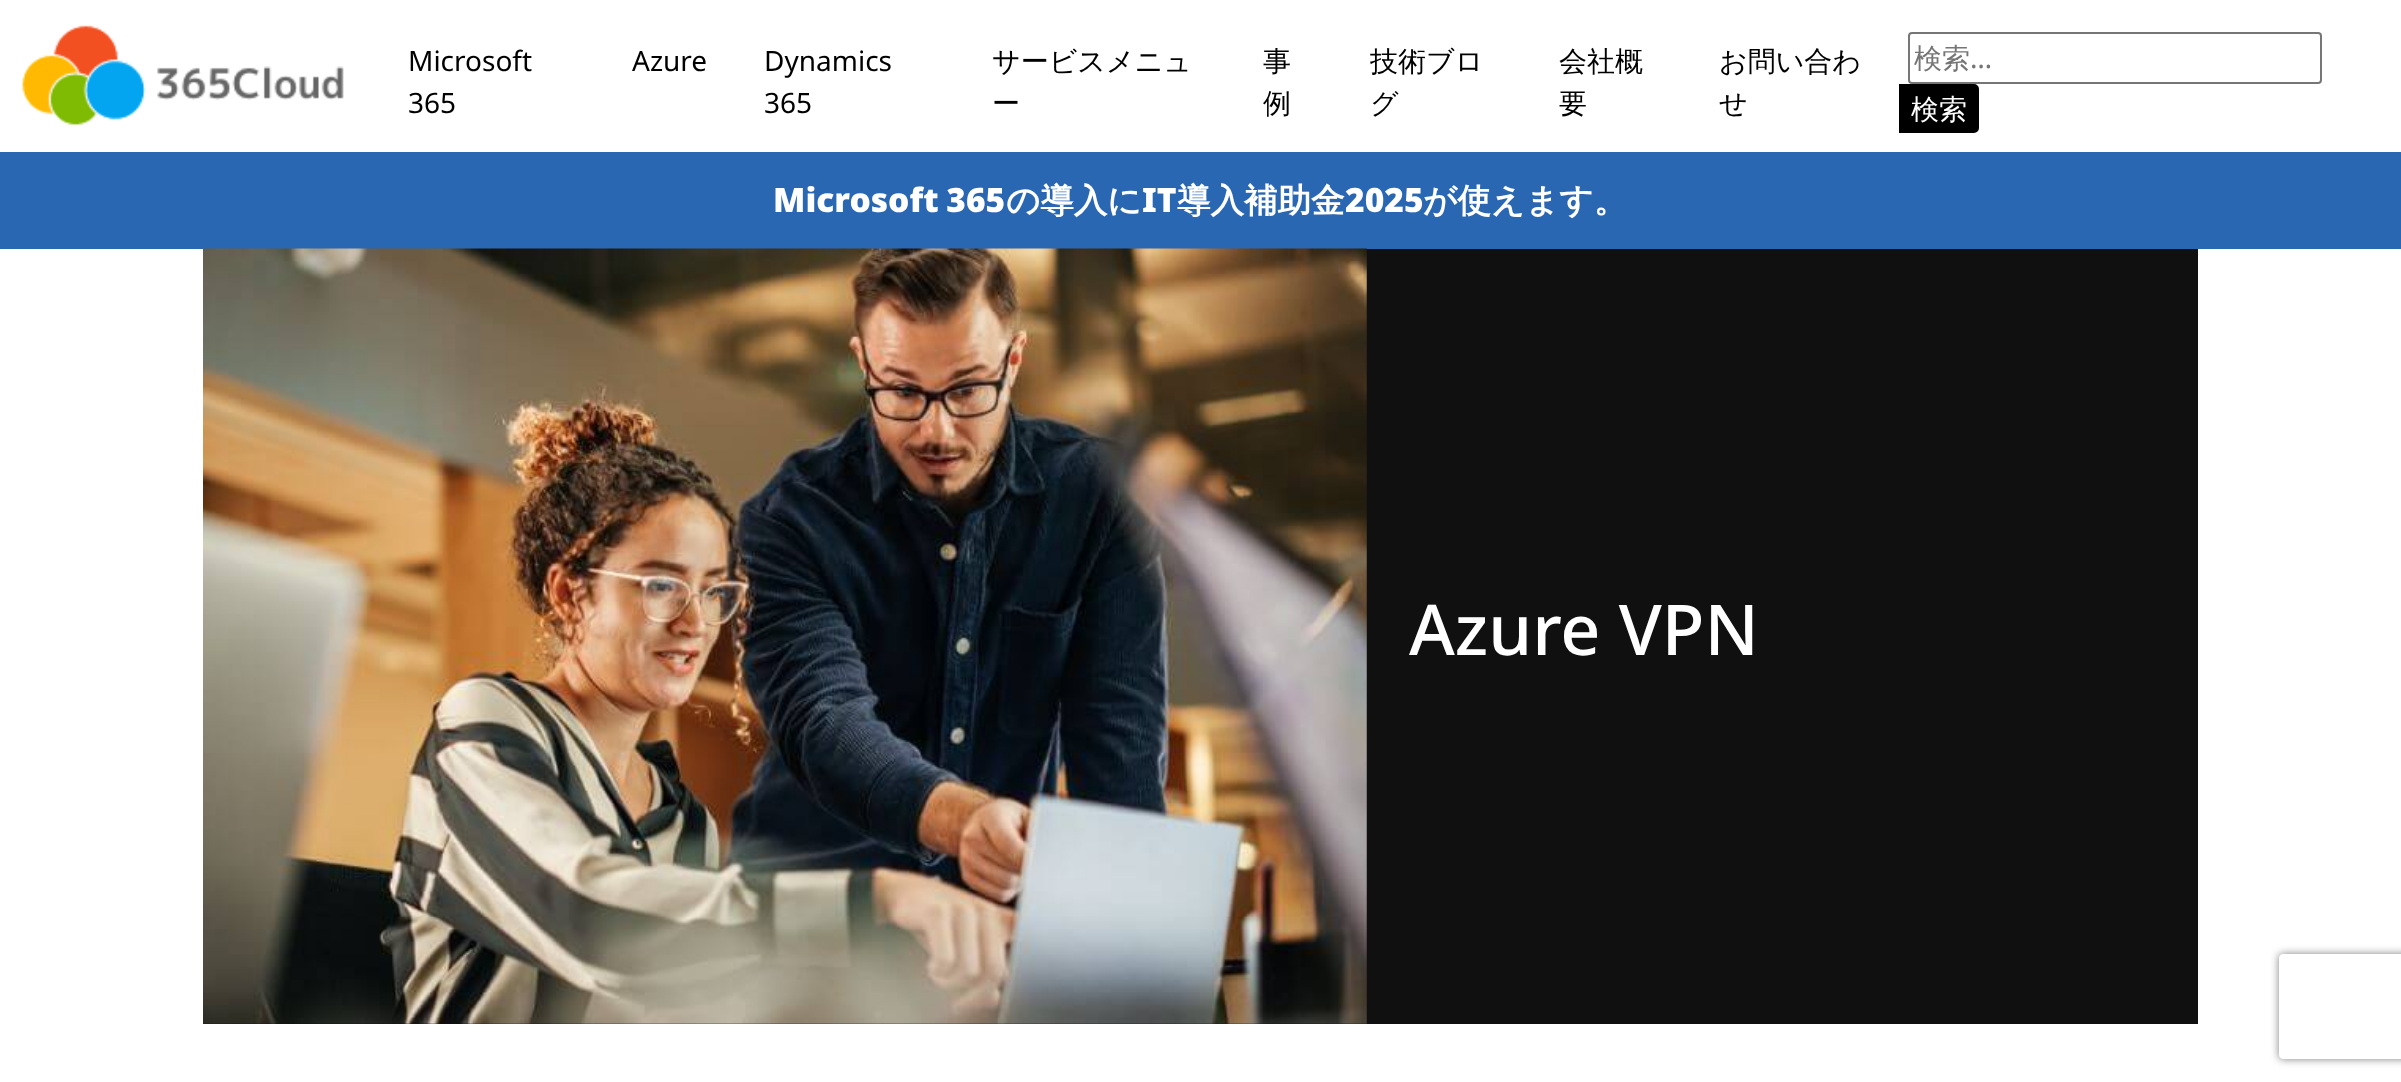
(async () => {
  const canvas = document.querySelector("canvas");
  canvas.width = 2401;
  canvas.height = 1082;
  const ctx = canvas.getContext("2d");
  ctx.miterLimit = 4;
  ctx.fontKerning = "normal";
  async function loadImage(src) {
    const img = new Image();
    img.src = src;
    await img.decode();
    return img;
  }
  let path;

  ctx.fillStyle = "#ffffff";
  ctx.fillRect(0, 0, 2401, 1082);
  ctx.drawImage(await loadImage("img/1.png"), 21, 24, 323, 102);
  ctx.beginPath();
  ctx.roundRect(1909, 33, 412, 50, 3);
  ctx.strokeStyle = "#767676";
  ctx.lineWidth = 2;
  ctx.stroke();
  ctx.fillStyle = "#000000";
  ctx.beginPath();
  ctx.roundRect(1900, 85, 78, 47, [0, 4, 4, 0]);
  ctx.fill();
  ctx.strokeStyle = "#000000";
  ctx.stroke();
  ctx.fillStyle = "#2a67b2";
  ctx.fillRect(0, 152, 2401, 97);
  ctx.fillStyle = "#101010";
  ctx.fillRect(203, 249, 1995, 775);
  ctx.drawImage(await loadImage("img/2.png"), 203, 248, 1164, 776);
  ctx.save();
  path = new Path2D("M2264 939H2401V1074H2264ZM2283 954H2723C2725 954 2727 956 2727 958V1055C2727 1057 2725 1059 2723 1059H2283C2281 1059 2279 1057 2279 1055V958C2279 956 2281 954 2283 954Z");
  ctx.clip(path, "evenodd");
  ctx.fillStyle = "#808080";
  ctx.filter = "blur(4.5px)";
  ctx.beginPath();
  ctx.roundRect(2279, 954, 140, 105, 4);
  ctx.fill();
  ctx.filter = "none";
  ctx.restore();
  ctx.font = "28px Noto Sans";
  ctx.fillStyle = "#000000";
  for (const [text, x, y] of [
    ["Microsoft", 408, 71],
    ["365", 408, 113],
    ["Azure", 632, 71],
    ["Dynamics", 764, 71],
    ["365", 764, 113],
  ]) {
    ctx.fillText(text, x, y);
  }
  ctx.font = "500 28px WenQuanYi Zen Hei";
  for (const [text, x, y] of [
    ["サービスメニュ", 992, 71],
    ["ー", 992, 113],
    ["事", 1263, 71],
    ["例", 1263, 113],
    ["技術ブロ", 1370, 71],
    ["グ", 1370, 113],
    ["会社概", 1559, 71],
    ["要", 1559, 113],
    ["お問い合わ", 1719, 71],
    ["せ", 1719, 113],
  ]) {
    ctx.fillText(text, x, y);
  }
  ctx.fillStyle = "#757575";
  ctx.fillText("検索", 1914, 68);
  ctx.font = "28px Noto Sans";
  ctx.fillText("…", 1970, 68);
  ctx.font = "500 28px WenQuanYi Zen Hei";
  ctx.fillStyle = "#ffffff";
  ctx.fillText("検索", 1911, 119);
  ctx.wordSpacing = "-1px";
  ctx.font = "900 33.5px Noto Sans";
  ctx.fillText("Microsoft 365", 773, 212);
  ctx.wordSpacing = "0px";
  ctx.font = "bold 33.5px WenQuanYi Zen Hei";
  ctx.fillText("の導入に", 1006, 212);
  ctx.font = "900 33.5px Noto Sans";
  ctx.fillText("IT", 1142, 212);
  ctx.font = "bold 33.5px WenQuanYi Zen Hei";
  ctx.fillText("導入補助金", 1177, 212);
  ctx.font = "900 33.5px Noto Sans";
  ctx.fillText("2025", 1345, 212);
  ctx.font = "bold 33.5px WenQuanYi Zen Hei";
  ctx.fillText("が使えます。", 1423, 212);
  ctx.font = "500 70px Noto Sans";
  ctx.fillText("Azure VPN", 1409, 655);
})();
